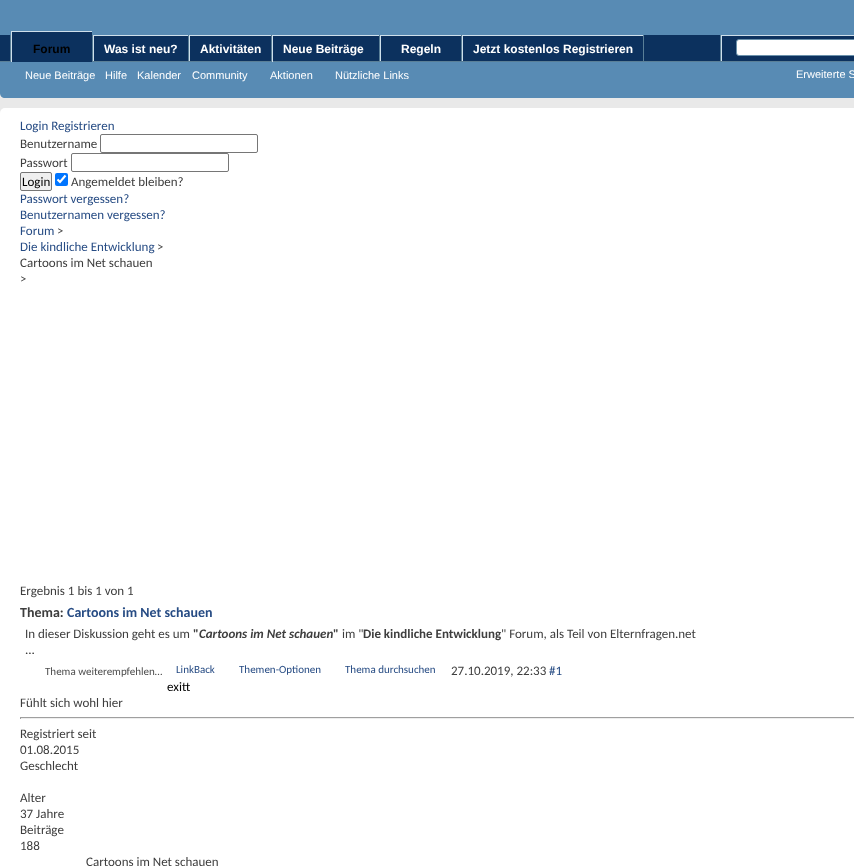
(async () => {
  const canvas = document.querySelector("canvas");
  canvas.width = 854;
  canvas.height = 867;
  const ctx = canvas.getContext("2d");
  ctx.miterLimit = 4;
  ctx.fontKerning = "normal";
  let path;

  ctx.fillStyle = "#e9e9e9";
  ctx.fillRect(0, 0, 854, 867);
  ctx.fillStyle = "#588bb4";
  path = new Path2D("M0 0H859V93C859 96 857 98 854 98H5C2 98 0 96 0 93Z");
  ctx.fill(path);
  for (const [x, y, w, h, color] of [
    [0, 35, 854, 26, "#0c315e"],
    [92, 35, 1, 26, "#5a7f97"],
    [10, 35, 1, 26, "#5a7f97"],
    [188, 35, 1, 27, "#5a7f97"],
    [93, 35, 95, 1, "#cedfeb"],
    [93, 35, 1, 27, "#cedfeb"],
    [271, 35, 1, 27, "#5a7f97"],
    [189, 35, 82, 1, "#cedfeb"],
    [189, 35, 1, 27, "#cedfeb"],
    [461, 35, 1, 27, "#5a7f97"],
    [380, 35, 81, 1, "#cedfeb"],
    [380, 35, 1, 27, "#cedfeb"],
    [643, 35, 1, 27, "#5a7f97"],
    [462, 35, 181, 1, "#cedfeb"],
    [462, 35, 1, 27, "#cedfeb"],
    [0, 61, 854, 1, "#5a7f97"],
    [12, 32, 80, 30, "#0c315e"],
    [11, 31, 81, 1, "#cedfeb"],
    [11, 31, 1, 31, "#cedfeb"],
    [379, 35, 1, 27, "#5a7f97"],
    [272, 35, 107, 1, "#cedfeb"],
    [272, 35, 1, 27, "#cedfeb"],
    [720, 35, 1, 26, "#5a7f97"],
    [721, 35, 133, 1, "#cedfeb"],
    [721, 35, 1, 26, "#cedfeb"],
  ]) {
    ctx.fillStyle = color;
    ctx.fillRect(x, y, w, h);
  }
  ctx.fillStyle = "#ffffff";
  ctx.beginPath();
  ctx.roundRect(736.5, 39.5, 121, 16, 2.5);
  ctx.fill();
  ctx.strokeStyle = "#6b91ab";
  ctx.stroke();
  ctx.beginPath();
  ctx.roundRect(0, 108, 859, 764, 5);
  ctx.fill();
  ctx.beginPath();
  ctx.roundRect(100.5, 134.5, 157, 18, 1.5);
  ctx.strokeStyle = "#767676";
  ctx.stroke();
  ctx.beginPath();
  ctx.roundRect(71.5, 153.5, 157, 18, 1.5);
  ctx.stroke();
  ctx.fillStyle = "#efefef";
  ctx.beginPath();
  ctx.roundRect(20.5, 172.5, 31, 18, 1.5);
  ctx.fill();
  ctx.stroke();
  ctx.fillStyle = "#0075ff";
  ctx.beginPath();
  ctx.roundRect(55, 173, 13, 13, 2);
  ctx.fill();
  path = new Path2D("M57.5 179.5L60 182L65.5 175.5");
  ctx.strokeStyle = "#ffffff";
  ctx.lineWidth = 2.1;
  ctx.stroke(path);
  for (const [x, y, w, h, color] of [
    [20, 717, 834, 1, "#9f9f9f"],
    [20, 718, 834, 1, "#eeeeee"],
    [20, 717, 1, 2, "#9f9f9f"],
  ]) {
    ctx.fillStyle = color;
    ctx.fillRect(x, y, w, h);
  }
  ctx.font = "bold 12px Liberation Sans";
  ctx.fillStyle = "#000000";
  ctx.fillText("Forum", 33, 53);
  ctx.fillStyle = "#ffffff";
  for (const [text, x, y] of [
    ["Was ist neu?", 104, 53],
    ["Aktivitäten", 200, 53],
    ["Neue Beiträge", 283, 53],
    ["Regeln", 401, 53],
    ["Jetzt kostenlos Registrieren", 473, 53],
  ]) {
    ctx.fillText(text, x, y);
  }
  ctx.font = "11px Liberation Sans";
  for (const [text, x, y] of [
    ["Neue Beiträge", 25, 79],
    ["Hilfe", 105, 79],
    ["Kalender", 137, 79],
    ["Community", 192, 79],
    ["Aktionen", 270, 79],
    ["Nützliche Links", 335, 79],
    ["Erweiterte S", 796, 78],
  ]) {
    ctx.fillText(text, x, y);
  }
  ctx.font = "13px Carlito";
  ctx.fillStyle = "#274c84";
  ctx.fillText("Login Registrieren", 20, 130);
  ctx.fillStyle = "#3e3e3e";
  ctx.fillText("Benutzername", 20, 148);
  ctx.fillText("Passwort", 20, 167);
  ctx.fillStyle = "#000000";
  ctx.fillText("Login", 22, 186);
  ctx.fillStyle = "#3e3e3e";
  ctx.fillText("Angemeldet bleiben?", 71, 186);
  ctx.fillStyle = "#274c84";
  for (const [text, x, y] of [
    ["Passwort vergessen?", 20, 203],
    ["Benutzernamen vergessen?", 20, 219],
    ["Forum", 20, 235],
  ]) {
    ctx.fillText(text, x, y);
  }
  ctx.fillStyle = "#3e3e3e";
  ctx.fillText(">", 57, 235);
  ctx.fillStyle = "#274c84";
  ctx.fillText("Die kindliche Entwicklung", 20, 251);
  ctx.fillStyle = "#3e3e3e";
  for (const [text, x, y] of [
    [">", 157, 251],
    ["Cartoons im Net schauen", 20, 267],
    [">", 20, 283],
    ["Ergebnis 1 bis 1 von 1", 20, 595],
  ]) {
    ctx.fillText(text, x, y);
  }
  ctx.font = "bold 14px Carlito";
  ctx.fillText("Thema:", 20, 617);
  ctx.fillStyle = "#274c84";
  ctx.fillText("Cartoons im Net schauen", 67, 617);
  ctx.font = "13px Carlito";
  ctx.fillStyle = "#3e3e3e";
  ctx.fillText("In dieser Diskussion geht es um", 25, 638);
  ctx.font = "bold 13px Carlito";
  ctx.fillText("\"", 193, 638);
  ctx.font = "italic bold 13px Carlito";
  ctx.fillText("Cartoons im Net schauen", 199, 638);
  ctx.font = "bold 13px Carlito";
  ctx.fillText("\"", 333, 638);
  ctx.font = "13px Carlito";
  ctx.fillText("im \"", 342, 638);
  ctx.font = "bold 13px Carlito";
  ctx.fillText("Die kindliche Entwicklung", 363, 638);
  ctx.font = "13px Carlito";
  ctx.fillText("\" Forum, als Teil von Elternfragen.net", 501, 638);
  ctx.fillText("...", 25, 654);
  ctx.font = "11px Carlito";
  ctx.fillStyle = "#4e4e4e";
  ctx.fillText("Thema weiterempfehlen…", 45, 675);
  ctx.fillStyle = "#274c84";
  for (const [text, x, y] of [
    ["LinkBack", 176, 673],
    ["Themen-Optionen", 239, 673],
    ["Thema durchsuchen", 345, 673],
  ]) {
    ctx.fillText(text, x, y);
  }
  ctx.font = "13px Carlito";
  ctx.fillStyle = "#3e3e3e";
  ctx.fillText("27.10.2019, 22:33", 451, 675);
  ctx.fillStyle = "#274c84";
  ctx.fillText("#1", 549, 675);
  ctx.fillStyle = "#000000";
  ctx.fillText("exitt", 167, 691);
  ctx.fillStyle = "#3e3e3e";
  for (const [text, x, y] of [
    ["Fühlt sich wohl hier", 20, 707],
    ["Registriert seit", 20, 738],
    ["01.08.2015", 20, 754],
    ["Geschlecht", 20, 770],
    ["Alter", 20, 802],
    ["37 Jahre", 20, 818],
    ["Beiträge", 20, 834],
    ["188", 20, 850],
    ["Cartoons im Net schauen", 86, 866],
  ]) {
    ctx.fillText(text, x, y);
  }
})();
